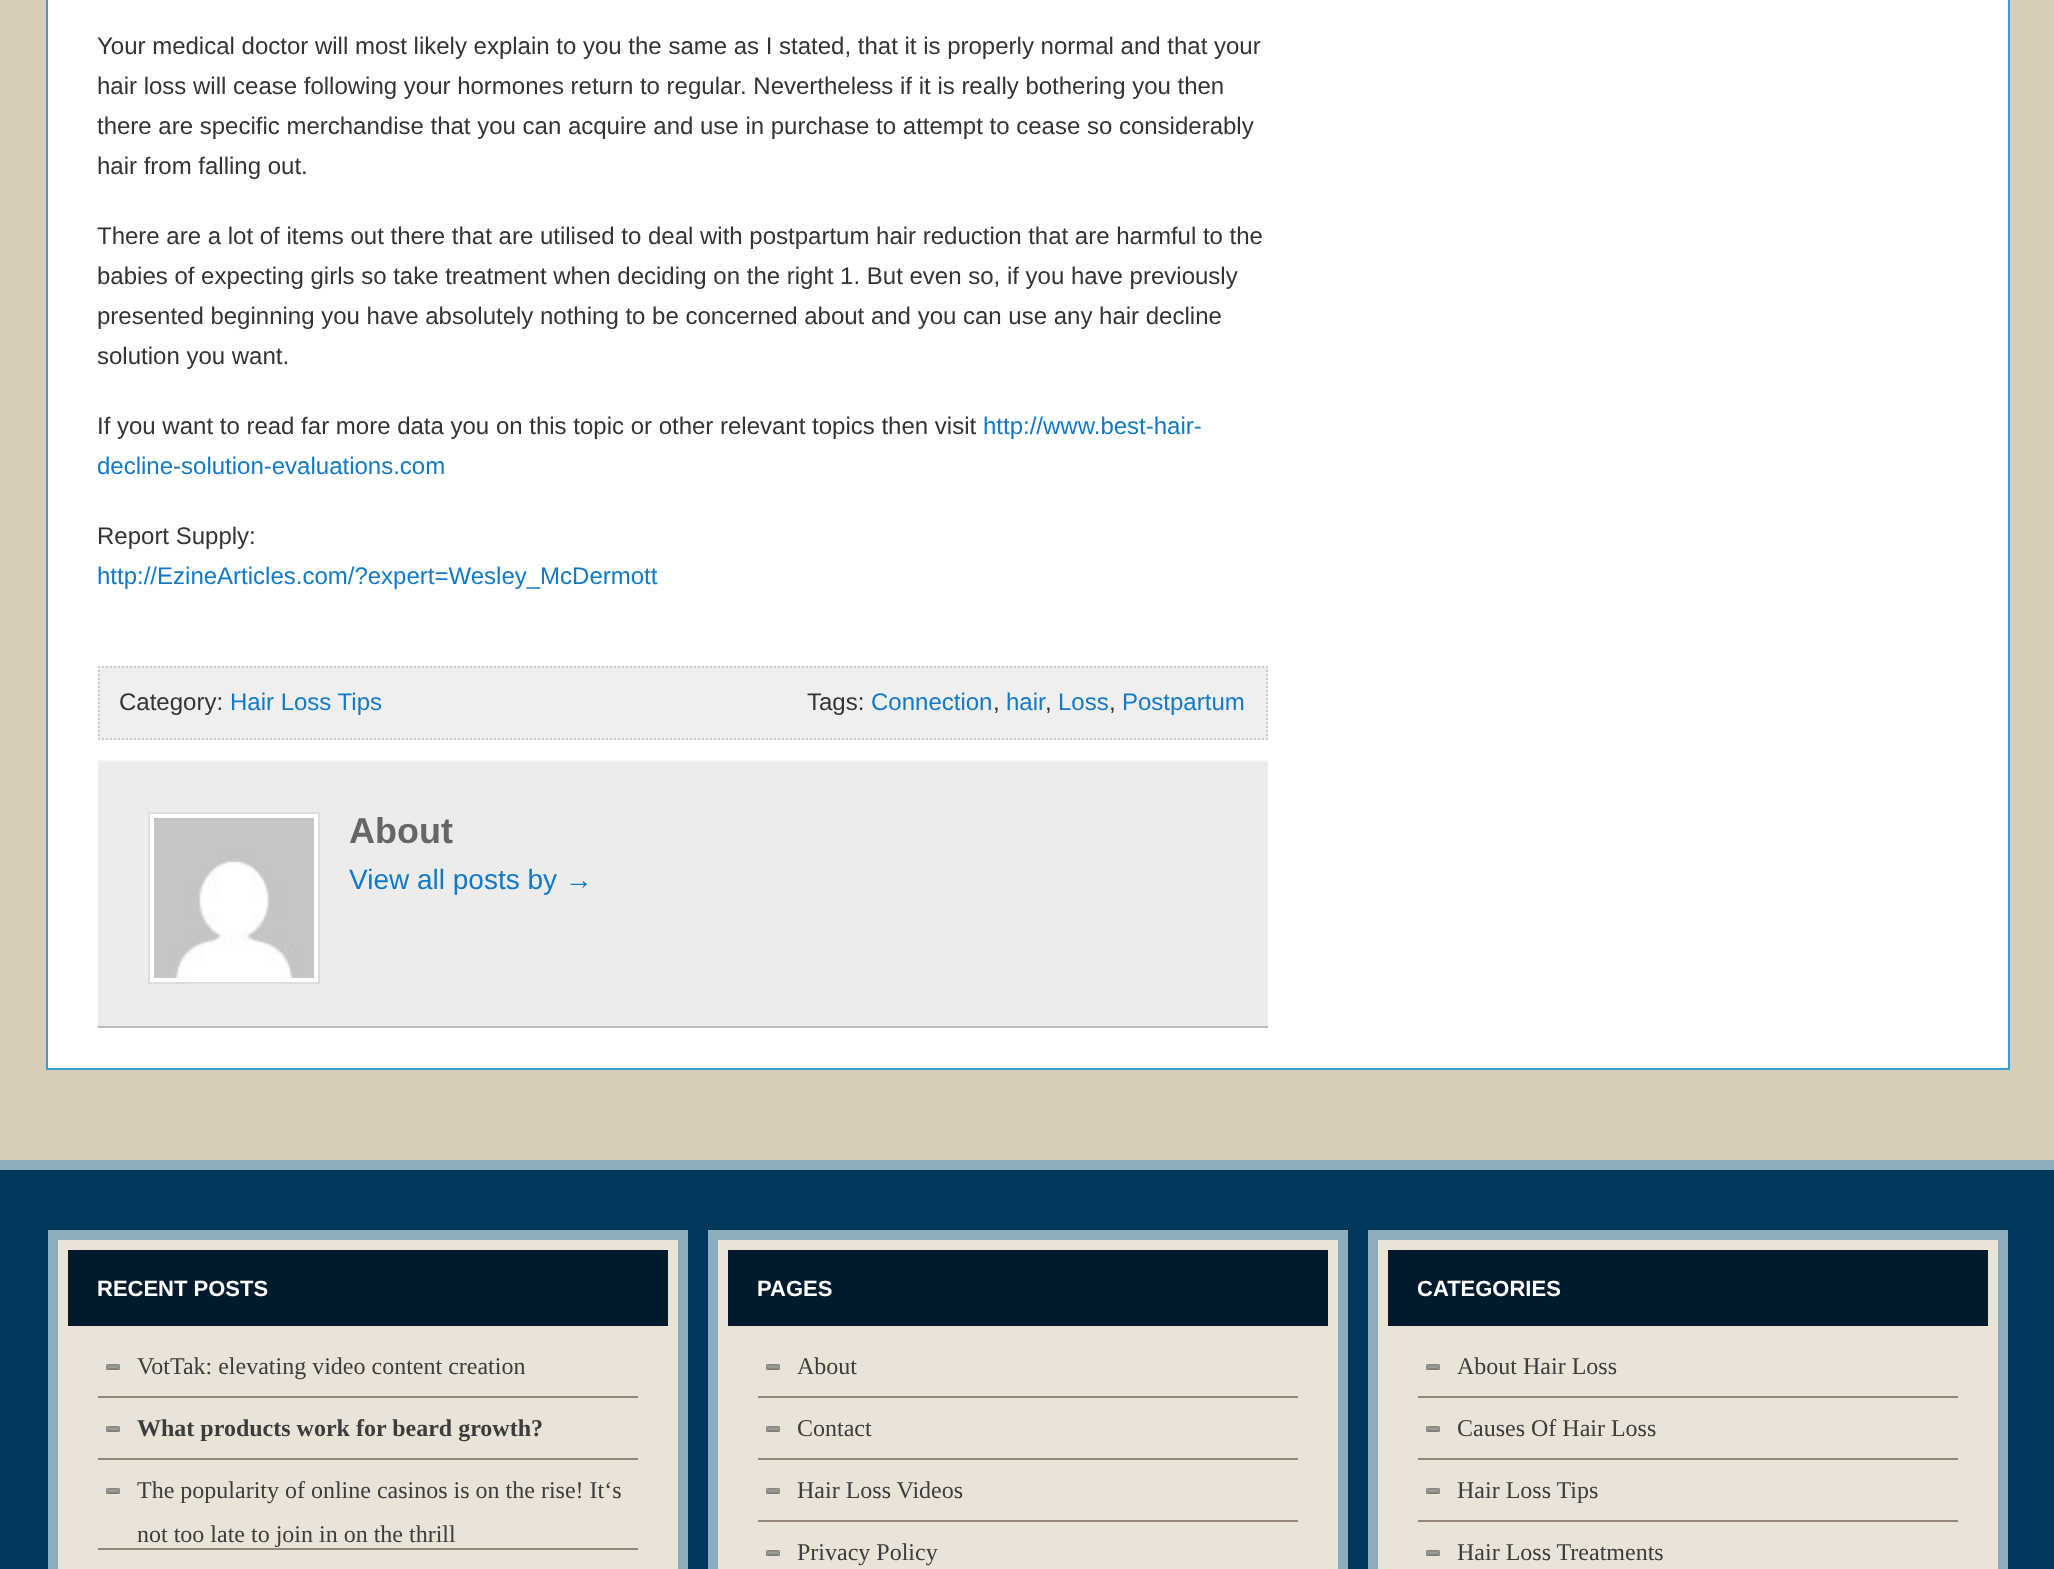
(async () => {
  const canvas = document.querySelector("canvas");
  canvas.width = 2054;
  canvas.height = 1569;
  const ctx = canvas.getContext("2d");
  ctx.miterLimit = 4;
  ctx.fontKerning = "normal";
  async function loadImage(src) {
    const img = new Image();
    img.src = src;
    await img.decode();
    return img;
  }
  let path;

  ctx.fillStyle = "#d6ceb8";
  ctx.fillRect(0, 0, 2054, 1569);
  ctx.fillStyle = "#ffffff";
  ctx.beginPath();
  ctx.rect(47, -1, 1962, 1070);
  ctx.fill();
  ctx.strokeStyle = "#369dcc";
  ctx.lineWidth = 2;
  ctx.stroke();
  ctx.fillStyle = "#efefef";
  ctx.fillRect(98, 666, 1170, 74);
  path = new Path2D("M98 667H1268");
  ctx.strokeStyle = "#cccccc";
  ctx.setLineDash([2, 2]);
  ctx.stroke(path);
  path = new Path2D("M1267 666V740");
  ctx.stroke(path);
  path = new Path2D("M98 739H1268");
  ctx.stroke(path);
  path = new Path2D("M99 666V740");
  ctx.stroke(path);
  for (const [x, y, w, h, color] of [
    [98, 762, 1170, 264, "#ececec"],
    [98, 760, 1170, 2, "#f5f5f5"],
    [98, 1026, 1170, 2, "#bbbbbb"],
  ]) {
    ctx.fillStyle = color;
    ctx.fillRect(x, y, w, h);
  }
  ctx.fillStyle = "#ffffff";
  ctx.beginPath();
  ctx.rect(149, 813, 170, 170);
  ctx.fill();
  ctx.strokeStyle = "#dddddd";
  ctx.setLineDash([]);
  ctx.stroke();
  ctx.drawImage(await loadImage("img/1.png"), 154, 818, 160, 160);
  ctx.fillStyle = "#02385e";
  ctx.fillRect(0, 1170, 2054, 399);
  ctx.fillStyle = "#8cadbc";
  ctx.fillRect(0, 1160, 2054, 10);
  ctx.fillStyle = "#eae3d8";
  ctx.beginPath();
  ctx.rect(53, 1235, 630, 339);
  ctx.fill();
  ctx.strokeStyle = "#8cadbc";
  ctx.lineWidth = 10;
  ctx.stroke();
  ctx.fillStyle = "#011b2d";
  ctx.fillRect(68, 1250, 600, 76);
  ctx.drawImage(await loadImage("img/2.png"), 106, 1364, 14, 6);
  ctx.fillStyle = "#968579";
  ctx.fillRect(98, 1396, 540, 2);
  ctx.drawImage(await loadImage("img/2.png"), 106, 1426, 14, 6);
  ctx.fillRect(98, 1458, 540, 2);
  ctx.drawImage(await loadImage("img/2.png"), 106, 1488, 14, 6);
  ctx.fillRect(98, 1548, 540, 2);
  ctx.fillStyle = "#eae3d8";
  ctx.beginPath();
  ctx.rect(713, 1235, 630, 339);
  ctx.fill();
  ctx.stroke();
  ctx.fillStyle = "#011b2d";
  ctx.fillRect(728, 1250, 600, 76);
  ctx.drawImage(await loadImage("img/2.png"), 766, 1364, 14, 6);
  ctx.fillStyle = "#968579";
  ctx.fillRect(758, 1396, 540, 2);
  ctx.drawImage(await loadImage("img/2.png"), 766, 1426, 14, 6);
  ctx.fillRect(758, 1458, 540, 2);
  ctx.drawImage(await loadImage("img/2.png"), 766, 1488, 14, 6);
  ctx.fillRect(758, 1520, 540, 2);
  ctx.drawImage(await loadImage("img/2.png"), 766, 1550, 14, 6);
  ctx.fillStyle = "#eae3d8";
  ctx.beginPath();
  ctx.rect(1373, 1235, 630, 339);
  ctx.fill();
  ctx.stroke();
  ctx.fillStyle = "#011b2d";
  ctx.fillRect(1388, 1250, 600, 76);
  ctx.drawImage(await loadImage("img/2.png"), 1426, 1364, 14, 6);
  ctx.fillStyle = "#968579";
  ctx.fillRect(1418, 1396, 540, 2);
  ctx.drawImage(await loadImage("img/2.png"), 1426, 1426, 14, 6);
  ctx.fillRect(1418, 1458, 540, 2);
  ctx.drawImage(await loadImage("img/2.png"), 1426, 1488, 14, 6);
  ctx.fillRect(1418, 1520, 540, 2);
  ctx.drawImage(await loadImage("img/2.png"), 1426, 1550, 14, 6);
  ctx.font = "24px Liberation Sans";
  ctx.fillStyle = "#333333";
  for (const [text, x, y] of [
    ["Your medical doctor will most likely explain to you the same as I stated, that it is properly normal and that your", 97, 54],
    ["hair loss will cease following your hormones return to regular. Nevertheless if it is really bothering you then", 97, 94],
    ["there are specific merchandise that you can acquire and use in purchase to attempt to cease so considerably", 97, 134],
    ["hair from falling out.", 97, 174],
    ["There are a lot of items out there that are utilised to deal with postpartum hair reduction that are harmful to the", 97, 244],
    ["babies of expecting girls so take treatment when deciding on the right 1. But even so, if you have previously", 97, 284],
    ["presented beginning you have absolutely nothing to be concerned about and you can use any hair decline", 97, 324],
    ["solution you want.", 97, 364],
    ["If you want to read far more data you on this topic or other relevant topics then visit", 97, 434],
  ]) {
    ctx.fillText(text, x, y);
  }
  ctx.fillStyle = "#1079c9";
  ctx.fillText("http://www.best-hair-", 983, 434);
  ctx.fillText("decline-solution-evaluations.com", 97, 474);
  ctx.fillStyle = "#333333";
  ctx.fillText("Report Supply:", 97, 544);
  ctx.fillStyle = "#1079c9";
  ctx.fillText("http://EzineArticles.com/?expert=Wesley_McDermott", 97, 584);
  ctx.fillStyle = "#333333";
  ctx.fillText("Category:", 119, 710);
  ctx.fillStyle = "#1079c9";
  ctx.fillText("Hair Loss Tips", 230, 710);
  ctx.fillStyle = "#333333";
  ctx.fillText("Tags:", 807, 710);
  ctx.fillStyle = "#1079c9";
  ctx.fillText("Connection", 871, 710);
  ctx.fillStyle = "#333333";
  ctx.fillText(",", 993, 710);
  ctx.fillStyle = "#1079c9";
  ctx.fillText("hair", 1006, 710);
  ctx.fillStyle = "#333333";
  ctx.fillText(",", 1045, 710);
  ctx.fillStyle = "#1079c9";
  ctx.fillText("Loss", 1058, 710);
  ctx.fillStyle = "#333333";
  ctx.fillText(",", 1109, 710);
  ctx.fillStyle = "#1079c9";
  ctx.fillText("Postpartum", 1122, 710);
  ctx.font = "bold 36px Liberation Sans";
  ctx.fillStyle = "#666666";
  ctx.fillText("About", 349, 843);
  ctx.font = "28px Liberation Sans";
  ctx.fillStyle = "#1079c9";
  ctx.fillText("View all posts by →", 349, 889);
  ctx.font = "bold 22px Liberation Sans";
  ctx.fillStyle = "#ffffff";
  ctx.fillText("RECENT POSTS", 97, 1296);
  ctx.font = "24px Liberation Serif";
  ctx.fillStyle = "#3c3c3c";
  ctx.fillText("VotTak: elevating video content creation", 137, 1374);
  ctx.font = "bold 24px Liberation Serif";
  ctx.fillText("What products work for beard growth?", 137, 1436);
  ctx.font = "24px Liberation Serif";
  ctx.fillText("The popularity of online casinos is on the rise! It‘s", 137, 1498);
  ctx.fillText("not too late to join in on the thrill", 137, 1542);
  ctx.font = "bold 22px Liberation Sans";
  ctx.fillStyle = "#ffffff";
  ctx.fillText("PAGES", 757, 1296);
  ctx.font = "24px Liberation Serif";
  ctx.fillStyle = "#3c3c3c";
  for (const [text, x, y] of [
    ["About", 797, 1374],
    ["Contact", 797, 1436],
    ["Hair Loss Videos", 797, 1498],
    ["Privacy Policy", 797, 1560],
  ]) {
    ctx.fillText(text, x, y);
  }
  ctx.font = "bold 22px Liberation Sans";
  ctx.fillStyle = "#ffffff";
  ctx.fillText("CATEGORIES", 1417, 1296);
  ctx.font = "24px Liberation Serif";
  ctx.fillStyle = "#3c3c3c";
  for (const [text, x, y] of [
    ["About Hair Loss", 1457, 1374],
    ["Causes Of Hair Loss", 1457, 1436],
    ["Hair Loss Tips", 1457, 1498],
    ["Hair Loss Treatments", 1457, 1560],
  ]) {
    ctx.fillText(text, x, y);
  }
})();
